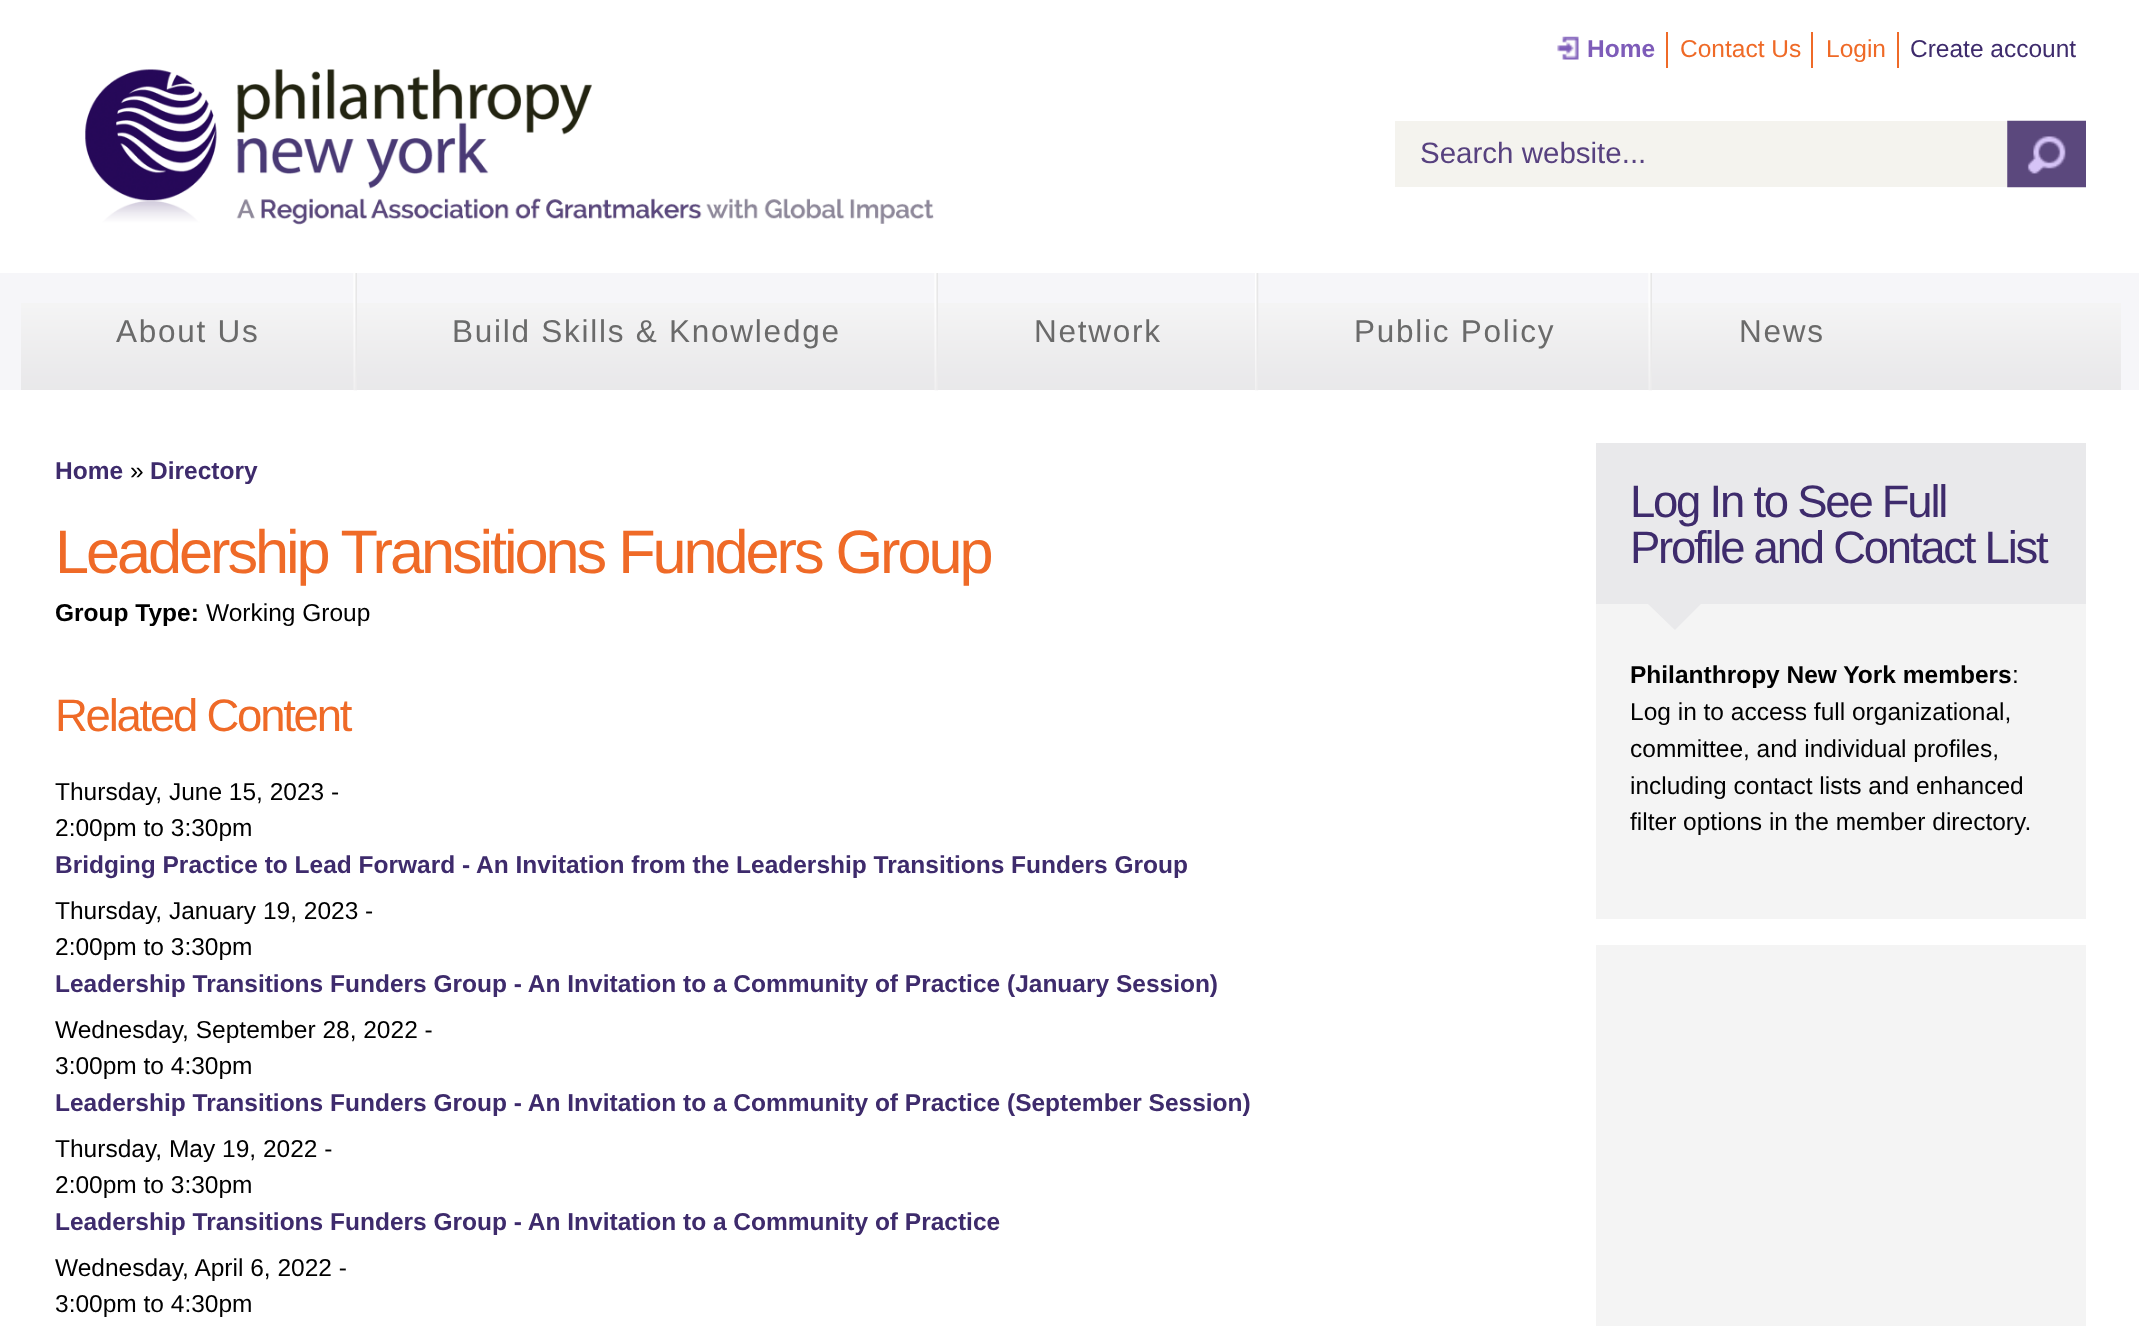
(async () => {
  const canvas = document.querySelector("canvas");
  canvas.width = 2139;
  canvas.height = 1326;
  const ctx = canvas.getContext("2d");
  ctx.miterLimit = 4;
  ctx.fontKerning = "normal";
  async function loadImage(src) {
    const img = new Image();
    img.src = src;
    await img.decode();
    return img;
  }
  let path;

  ctx.fillStyle = "#ffffff";
  ctx.fillRect(0, 0, 2139, 1326);
  ctx.drawImage(await loadImage("img/1.png"), 1557, 36, 22, 24);
  for (const [x, y, w, h, color] of [
    [1666, 32, 2, 36, "#ef6a27"],
    [1811, 32, 2, 36, "#ef6a27"],
    [1897, 32, 2, 36, "#ef6a27"],
  ]) {
    ctx.fillStyle = color;
    ctx.fillRect(x, y, w, h);
  }
  ctx.drawImage(await loadImage("img/2.png"), 85, 69, 849, 156);
  ctx.fillStyle = "#f4f3ee";
  ctx.fillRect(1395, 121, 613, 66);
  ctx.drawImage(await loadImage("img/3.png"), 2007, 120, 79, 68);
  ctx.fillStyle = "#f6f6f9";
  ctx.fillRect(0, 273, 2139, 117);
  ctx.drawImage(await loadImage("img/4.png"), 21, 303, 2100, 87);
  ctx.drawImage(await loadImage("img/5.png"), 353, 273, 4, 118);
  ctx.drawImage(await loadImage("img/5.png"), 934, 273, 4, 118);
  ctx.drawImage(await loadImage("img/6.png"), 1255, 273, 4, 118);
  ctx.drawImage(await loadImage("img/5.png"), 1648, 273, 4, 118);
  for (const [x, y, w, h, color] of [
    [1596, 604, 490, 722, "#f4f4f4"],
    [1596, 919, 490, 26, "#ffffff"],
    [1596, 443, 490, 161, "#e9e9eb"],
  ]) {
    ctx.fillStyle = color;
    ctx.fillRect(x, y, w, h);
  }
  path = new Path2D("M1648 604H1701L1675 630Z");
  ctx.fill(path);
  ctx.font = "bold 24.5px Liberation Sans";
  ctx.fillStyle = "#7e5cb9";
  ctx.fillText("Home", 1587, 57);
  ctx.font = "24.5px Liberation Sans";
  ctx.fillStyle = "#ef6a27";
  ctx.fillText("Contact Us", 1680, 57);
  ctx.fillText("Login", 1826, 57);
  ctx.fillStyle = "#3e2b6c";
  ctx.fillText("Create account", 1910, 57);
  ctx.font = "29.5px Liberation Sans";
  ctx.fillStyle = "#57417f";
  ctx.fillText("Search website...", 1420, 163);
  ctx.letterSpacing = "1.75px";
  ctx.font = "31.5px Liberation Sans";
  ctx.fillStyle = "#6a6a6a";
  for (const [text, x, y] of [
    ["About Us", 116, 342],
    ["Build Skills & Knowledge", 452, 342],
    ["Network", 1034, 342],
    ["Public Policy", 1354, 342],
    ["News", 1739, 342],
  ]) {
    ctx.fillText(text, x, y);
  }
  ctx.letterSpacing = "0px";
  ctx.font = "bold 24.5px Liberation Sans";
  ctx.fillStyle = "#3e2b6c";
  ctx.fillText("Home", 55, 479);
  ctx.font = "24.5px Liberation Sans";
  ctx.fillStyle = "#000000";
  ctx.fillText("»", 130, 479);
  ctx.font = "bold 24.5px Liberation Sans";
  ctx.fillStyle = "#3e2b6c";
  ctx.fillText("Directory", 150, 479);
  ctx.letterSpacing = "-3.05px";
  ctx.font = "61.25px Liberation Sans";
  ctx.fillStyle = "#ef6a27";
  ctx.fillText("Leadership Transitions Funders Group", 55, 573);
  ctx.letterSpacing = "0px";
  ctx.font = "bold 24.5px Liberation Sans";
  ctx.fillStyle = "#000000";
  ctx.fillText("Group Type:", 55, 621);
  ctx.font = "24.5px Liberation Sans";
  ctx.fillText("Working Group", 206, 621);
  ctx.letterSpacing = "-2.25px";
  ctx.font = "45.5px Liberation Sans";
  ctx.fillStyle = "#ef6a27";
  ctx.fillText("Related Content", 55, 731);
  ctx.letterSpacing = "0px";
  ctx.font = "24.5px Liberation Sans";
  ctx.fillStyle = "#000000";
  ctx.fillText("Thursday, June 15, 2023 -", 55, 800);
  ctx.fillText("2:00pm to 3:30pm", 55, 836);
  ctx.font = "bold 24.5px Liberation Sans";
  ctx.fillStyle = "#3e2b6c";
  ctx.fillText("Bridging Practice to Lead Forward - An Invitation from the Leadership Transitions Funders Group", 55, 873);
  ctx.font = "24.5px Liberation Sans";
  ctx.fillStyle = "#000000";
  ctx.fillText("Thursday, January 19, 2023 -", 55, 919);
  ctx.fillText("2:00pm to 3:30pm", 55, 955);
  ctx.font = "bold 24.5px Liberation Sans";
  ctx.fillStyle = "#3e2b6c";
  ctx.fillText("Leadership Transitions Funders Group - An Invitation to a Community of Practice (January Session)", 55, 992);
  ctx.font = "24.5px Liberation Sans";
  ctx.fillStyle = "#000000";
  ctx.fillText("Wednesday, September 28, 2022 -", 55, 1038);
  ctx.fillText("3:00pm to 4:30pm", 55, 1074);
  ctx.font = "bold 24.5px Liberation Sans";
  ctx.fillStyle = "#3e2b6c";
  ctx.fillText("Leadership Transitions Funders Group - An Invitation to a Community of Practice (September Session)", 55, 1111);
  ctx.font = "24.5px Liberation Sans";
  ctx.fillStyle = "#000000";
  ctx.fillText("Thursday, May 19, 2022 -", 55, 1157);
  ctx.fillText("2:00pm to 3:30pm", 55, 1193);
  ctx.font = "bold 24.5px Liberation Sans";
  ctx.fillStyle = "#3e2b6c";
  ctx.fillText("Leadership Transitions Funders Group - An Invitation to a Community of Practice", 55, 1230);
  ctx.font = "24.5px Liberation Sans";
  ctx.fillStyle = "#000000";
  ctx.fillText("Wednesday, April 6, 2022 -", 55, 1276);
  ctx.fillText("3:00pm to 4:30pm", 55, 1312);
  ctx.letterSpacing = "-2.25px";
  ctx.font = "45.5px Liberation Sans";
  ctx.fillStyle = "#3e2b6c";
  ctx.fillText("Log In to See Full", 1630, 517);
  ctx.fillText("Profile and Contact List", 1630, 563);
  ctx.letterSpacing = "0px";
  ctx.font = "bold 24.5px Liberation Sans";
  ctx.fillStyle = "#000000";
  ctx.fillText("Philanthropy New York members", 1630, 683);
  ctx.font = "24.5px Liberation Sans";
  for (const [text, x, y] of [
    [":", 2012, 683],
    ["Log in to access full organizational,", 1630, 720],
    ["committee, and individual profiles,", 1630, 757],
    ["including contact lists and enhanced", 1630, 794],
    ["filter options in the member directory.", 1630, 830],
  ]) {
    ctx.fillText(text, x, y);
  }
})();
